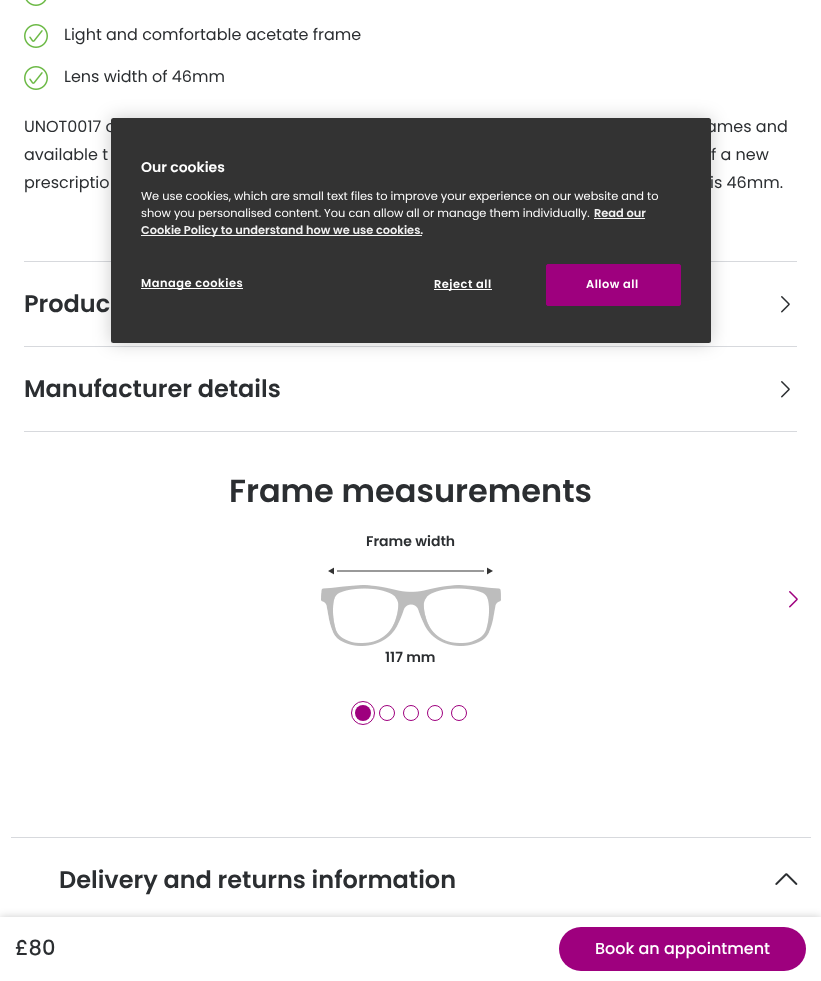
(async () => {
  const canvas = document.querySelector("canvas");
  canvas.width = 821;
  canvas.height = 981;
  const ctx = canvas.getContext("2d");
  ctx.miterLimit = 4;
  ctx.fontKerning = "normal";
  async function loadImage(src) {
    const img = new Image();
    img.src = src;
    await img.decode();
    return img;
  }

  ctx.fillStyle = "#ffffff";
  ctx.fillRect(0, 0, 821, 981);
  ctx.drawImage(await loadImage("img/1.png"), 25, 0, 22, 6);
  ctx.drawImage(await loadImage("img/2.png"), 24, 24, 24, 24);
  ctx.drawImage(await loadImage("img/2.png"), 24, 66, 24, 24);
  ctx.fillStyle = "#d7d9dd";
  ctx.fillRect(24, 261, 773, 1);
  ctx.fillRect(24, 346, 773, 1);
  ctx.drawImage(await loadImage("img/3.png"), 781, 296, 9, 17);
  ctx.fillRect(24, 431, 773, 1);
  ctx.drawImage(await loadImage("img/3.png"), 781, 381, 9, 17);
  ctx.drawImage(await loadImage("img/4.png"), 321, 567, 180, 79);
  ctx.drawImage(await loadImage("img/5.png"), 789, 591, 9, 17);
  ctx.fillStyle = "#9e007e";
  ctx.beginPath();
  ctx.arc(363, 713, 8, 0, Math.PI * 2);
  ctx.fill();
  ctx.beginPath();
  ctx.arc(363, 713, 11.5, 0, Math.PI * 2);
  ctx.strokeStyle = "#9e007e";
  ctx.stroke();
  ctx.beginPath();
  ctx.arc(387, 713, 7.5, 0, Math.PI * 2);
  ctx.stroke();
  ctx.beginPath();
  ctx.arc(411, 713, 7.5, 0, Math.PI * 2);
  ctx.stroke();
  ctx.beginPath();
  ctx.arc(435, 713, 7.5, 0, Math.PI * 2);
  ctx.stroke();
  ctx.beginPath();
  ctx.arc(459, 713, 7.5, 0, Math.PI * 2);
  ctx.stroke();
  ctx.fillStyle = "rgba(0, 0, 0, 0.2)";
  ctx.filter = "blur(4px)";
  ctx.beginPath();
  ctx.rect(0, 917, 821, 64);
  ctx.fill();
  ctx.filter = "none";
  ctx.fillStyle = "#ffffff";
  ctx.fillRect(0, 917, 821, 64);
  ctx.fillStyle = "#9e007e";
  ctx.beginPath();
  ctx.roundRect(559, 927, 247, 44, 22);
  ctx.fill();
  ctx.fillStyle = "#d7d9dd";
  ctx.fillRect(11, 837, 800, 1);
  ctx.drawImage(await loadImage("img/6.png"), 775, 873, 23, 12);
  ctx.fillStyle = "rgba(0, 0, 0, 0.2)";
  ctx.filter = "blur(9px)";
  ctx.beginPath();
  ctx.roundRect(111, 118, 600, 225, 2.5);
  ctx.fill();
  ctx.filter = "none";
  ctx.font = "16px Poppins";
  ctx.fillStyle = "#2b2e31";
  for (const [text, x, y] of [
    ["Light and comfortable acetate frame", 64, 40],
    ["Lens width of 46mm", 64, 82],
    ["UNOT0017 c", 24, 132],
    ["ames and", 706, 132],
    ["available t", 24, 160],
    ["f a new", 711, 160],
    ["prescriptio", 24, 188],
    ["is 46mm.", 710, 188],
  ]) {
    ctx.fillText(text, x, y);
  }
  ctx.font = "600 24px Poppins";
  ctx.fillText("Produc", 24, 312);
  ctx.fillText("Manufacturer details", 24, 397);
  ctx.font = "600 32px Poppins";
  ctx.fillText("Frame measurements", 229, 502);
  ctx.font = "600 14px Poppins";
  ctx.fillText("Frame width", 366, 546);
  ctx.fillText("117 mm", 385, 662);
  ctx.font = "500 21px Poppins";
  ctx.fillText("£80", 15, 955);
  ctx.font = "500 16px Poppins";
  ctx.fillStyle = "#ffffff";
  ctx.fillText("Book an appointment", 595, 954);
  ctx.font = "600 24px Poppins";
  ctx.fillStyle = "#2b2e31";
  ctx.fillText("Delivery and returns information", 59, 888);
  ctx.fillStyle = "#333333";
  ctx.beginPath();
  ctx.roundRect(111, 118, 600, 225, 2.5);
  ctx.fill();
  ctx.font = "600 14px Poppins";
  ctx.fillStyle = "#ffffff";
  ctx.fillText("Our cookies", 141, 172);
  ctx.font = "11.4px Poppins";
  ctx.fillText("We use cookies, which are small text files to improve your experience on our website and to", 141, 200);
  ctx.fillText("show you personalised content. You can allow all or manage them individually.", 141, 217);
  ctx.font = "600 11.4px Poppins";
  ctx.fillStyle = "#f2f2f2";
  ctx.fillText("Read our", 594, 217);
  ctx.fillRect(594, 218, 51, 1);
  ctx.fillRect(141, 235, 281, 1);
  ctx.fillText("Cookie Policy to understand how we use cookies.", 141, 234);
  ctx.fillStyle = "#ffffff";
  ctx.fillRect(141, 288, 102, 1);
  ctx.letterSpacing = "0.5px";
  ctx.fillText("Manage cookies", 141, 287);
  ctx.fillRect(434, 289, 58, 1);
  ctx.fillText("Reject all", 434, 288);
  ctx.fillStyle = "#9e007e";
  ctx.beginPath();
  ctx.roundRect(546.5, 264.5, 134, 41, 1.5);
  ctx.fill();
  ctx.stroke();
  ctx.fillStyle = "#ffffff";
  ctx.fillText("Allow all", 586, 288);
})();
